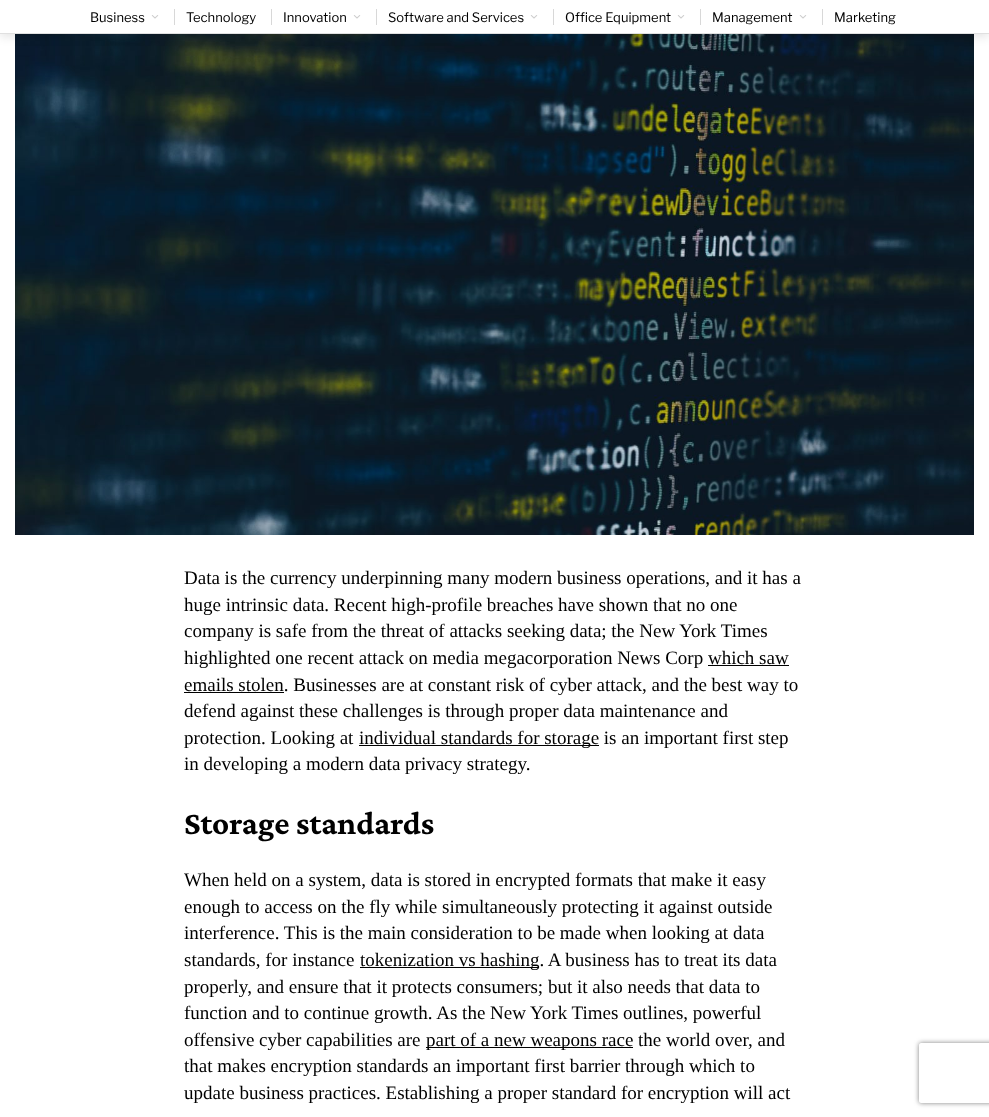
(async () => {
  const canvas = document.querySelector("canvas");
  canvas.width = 989;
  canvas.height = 1117;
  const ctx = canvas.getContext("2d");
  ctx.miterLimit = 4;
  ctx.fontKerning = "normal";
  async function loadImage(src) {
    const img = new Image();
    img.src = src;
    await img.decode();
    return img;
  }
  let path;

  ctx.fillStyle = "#ffffff";
  ctx.fillRect(0, 0, 989, 1117);
  ctx.drawImage(await loadImage("img/2.png"), 15, 34, 959, 501);
  ctx.fillStyle = "rgba(0, 0, 0, 0.1)";
  ctx.filter = "blur(5px)";
  ctx.beginPath();
  ctx.rect(0, 3, 989, 34);
  ctx.fill();
  ctx.filter = "none";
  ctx.fillStyle = "#ffffff";
  ctx.fillRect(0, 0, 989, 33);
  ctx.fillStyle = "#e0e0e0";
  ctx.fillRect(0, 33, 989, 1);
  ctx.drawImage(await loadImage("img/1.png"), 151, 15, 8, 4);
  ctx.fillStyle = "#d8d8d8";
  ctx.fillRect(174, 9, 1, 16);
  ctx.fillRect(271, 9, 1, 16);
  ctx.drawImage(await loadImage("img/1.png"), 353, 15, 8, 4);
  ctx.fillRect(376, 9, 1, 16);
  ctx.drawImage(await loadImage("img/1.png"), 530, 15, 8, 4);
  ctx.fillRect(553, 9, 1, 16);
  ctx.drawImage(await loadImage("img/1.png"), 677, 15, 8, 4);
  ctx.fillRect(700, 9, 1, 16);
  ctx.drawImage(await loadImage("img/1.png"), 799, 15, 8, 4);
  for (const [x, y, w, h, color] of [
    [822, 9, 1, 16, "#d8d8d8"],
    [708, 665, 81, 1, "#000000"],
    [184, 692, 100, 1, "#000000"],
    [359, 745, 240, 1, "#000000"],
    [360, 967, 179, 1, "#000000"],
    [426, 1047, 207, 1, "#000000"],
  ]) {
    ctx.fillStyle = color;
    ctx.fillRect(x, y, w, h);
  }
  ctx.save();
  path = new Path2D("M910 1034H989V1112H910ZM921 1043H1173C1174 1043 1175 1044 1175 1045V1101C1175 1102 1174 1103 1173 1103H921C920 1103 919 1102 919 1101V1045C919 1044 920 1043 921 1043Z");
  ctx.clip(path, "evenodd");
  ctx.fillStyle = "#808080";
  ctx.filter = "blur(2.5px)";
  ctx.beginPath();
  ctx.roundRect(919, 1043, 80, 60, 2);
  ctx.fill();
  ctx.filter = "none";
  ctx.restore();
  ctx.font = "13px Libre Franklin";
  for (const [text, x, y] of [
    ["Business", 90, 22],
    ["Technology", 186, 22],
    ["Innovation", 283, 22],
    ["Software and Services", 388, 22],
    ["Office Equipment", 565, 22],
    ["Management", 712, 22],
    ["Marketing", 834, 22],
  ]) {
    ctx.fillText(text, x, y);
  }
  ctx.font = "19px Liberation Serif";
  for (const [text, x, y] of [
    ["Data is the currency underpinning many modern business operations, and it has a", 184, 584],
    ["huge intrinsic data. Recent high-profile breaches have shown that no one", 184, 611],
    ["company is safe from the threat of attacks seeking data; the New York Times", 184, 637],
    ["highlighted one recent attack on media megacorporation News Corp which saw", 184, 664],
    ["emails stolen. Businesses are at constant risk of cyber attack, and the best way to", 184, 691],
    ["defend against these challenges is through proper data maintenance and", 184, 717],
    ["protection. Looking at", 184, 744],
    ["individual standards for storage is an important first step", 359, 744],
    ["in developing a modern data privacy strategy.", 184, 770],
  ]) {
    ctx.fillText(text, x, y);
  }
  ctx.font = "bold 33px Crimson Pro";
  ctx.fillText("Storage standards", 184, 834);
  ctx.font = "19px Liberation Serif";
  for (const [text, x, y] of [
    ["When held on a system, data is stored in encrypted formats that make it easy", 184, 886],
    ["enough to access on the fly while simultaneously protecting it against outside", 184, 913],
    ["interference. This is the main consideration to be made when looking at data", 184, 939],
    ["standards, for instance", 184, 966],
    ["tokenization vs hashing. A business has to treat its data", 360, 966],
    ["properly, and ensure that it protects consumers; but it also needs that data to", 184, 993],
    ["function and to continue growth. As the New York Times outlines, powerful", 184, 1019],
    ["offensive cyber capabilities are", 184, 1046],
    ["part of a new weapons race the world over, and", 426, 1046],
    ["that makes encryption standards an important first barrier through which to", 184, 1072],
    ["update business practices. Establishing a proper standard for encryption will act", 184, 1099],
  ]) {
    ctx.fillText(text, x, y);
  }
})();
